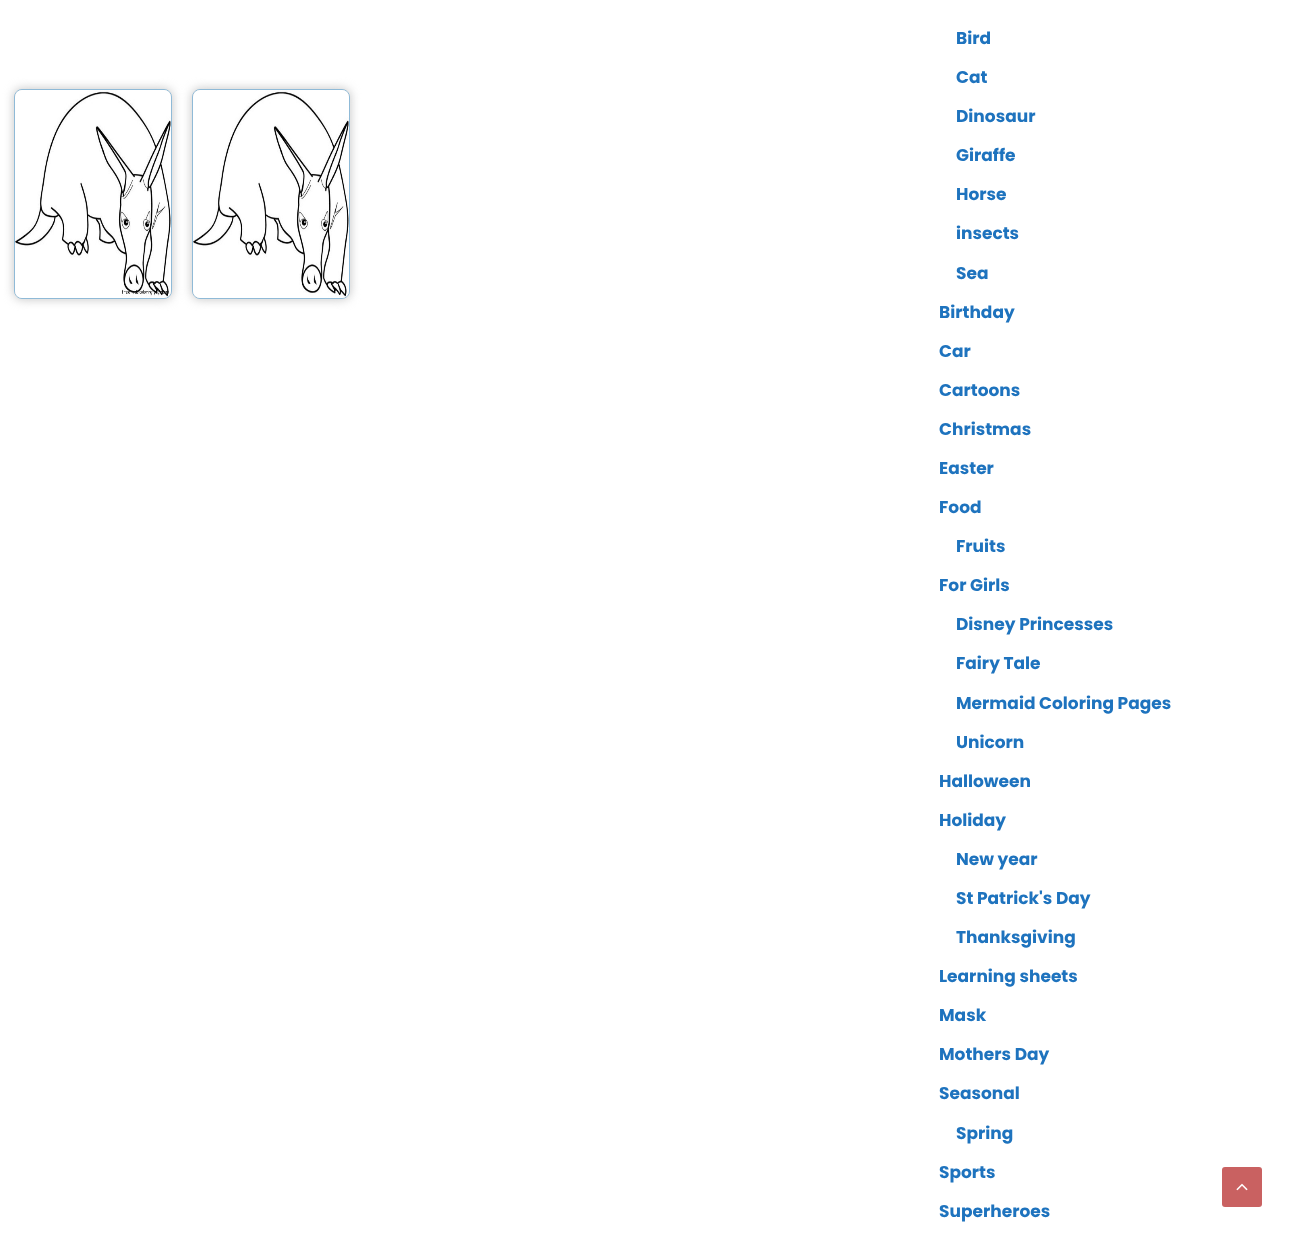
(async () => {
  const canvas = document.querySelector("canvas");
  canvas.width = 1292;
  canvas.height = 1237;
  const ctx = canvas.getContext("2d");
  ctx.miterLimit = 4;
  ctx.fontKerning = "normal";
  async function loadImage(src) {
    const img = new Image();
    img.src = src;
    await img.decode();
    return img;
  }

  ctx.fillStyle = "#ffffff";
  ctx.fillRect(0, 0, 1292, 1237);
  ctx.fillStyle = "#cccccc";
  ctx.filter = "blur(5px)";
  ctx.beginPath();
  ctx.roundRect(13, 88, 160, 212, 9);
  ctx.fill();
  ctx.filter = "none";
  ctx.beginPath();
  ctx.roundRect(14.5, 89.5, 157, 209, 7.5);
  ctx.strokeStyle = "#8fbad7";
  ctx.stroke();
  ctx.drawImage(await loadImage("img/1.png"), 15, 90, 156, 208);
  ctx.filter = "blur(5px)";
  ctx.beginPath();
  ctx.roundRect(191, 88, 160, 212, 9);
  ctx.fill();
  ctx.filter = "none";
  ctx.beginPath();
  ctx.roundRect(192.5, 89.5, 157, 209, 7.5);
  ctx.stroke();
  ctx.drawImage(await loadImage("img/2.png"), 193, 90, 156, 208);
  ctx.fillStyle = "#c96161";
  ctx.beginPath();
  ctx.roundRect(1222, 1167, 40, 40, 3);
  ctx.fill();
  ctx.drawImage(await loadImage("img/3.png"), 1236, 1183, 12, 8);
  ctx.font = "bold 17px Poppins";
  ctx.fillStyle = "#1e73be";
  for (const [text, x, y] of [
    ["Bird", 956, 44],
    ["Cat", 956, 83],
    ["Dinosaur", 956, 122],
    ["Giraffe", 956, 161],
    ["Horse", 956, 200],
    ["insects", 956, 239],
    ["Sea", 956, 279],
    ["Birthday", 939, 318],
    ["Car", 939, 357],
    ["Cartoons", 939, 396],
    ["Christmas", 939, 435],
    ["Easter", 939, 474],
    ["Food", 939, 513],
    ["Fruits", 956, 552],
    ["For Girls", 939, 591],
    ["Disney Princesses", 956, 630],
    ["Fairy Tale", 956, 669],
    ["Mermaid Coloring Pages", 956, 709],
    ["Unicorn", 956, 748],
    ["Halloween", 939, 787],
    ["Holiday", 939, 826],
    ["New year", 956, 865],
    ["St Patrick's Day", 956, 904],
    ["Thanksgiving", 956, 943],
    ["Learning sheets", 939, 982],
    ["Mask", 939, 1021],
    ["Mothers Day", 939, 1060],
    ["Seasonal", 939, 1099],
    ["Spring", 956, 1139],
    ["Sports", 939, 1178],
    ["Superheroes", 939, 1217],
  ]) {
    ctx.fillText(text, x, y);
  }
})();
